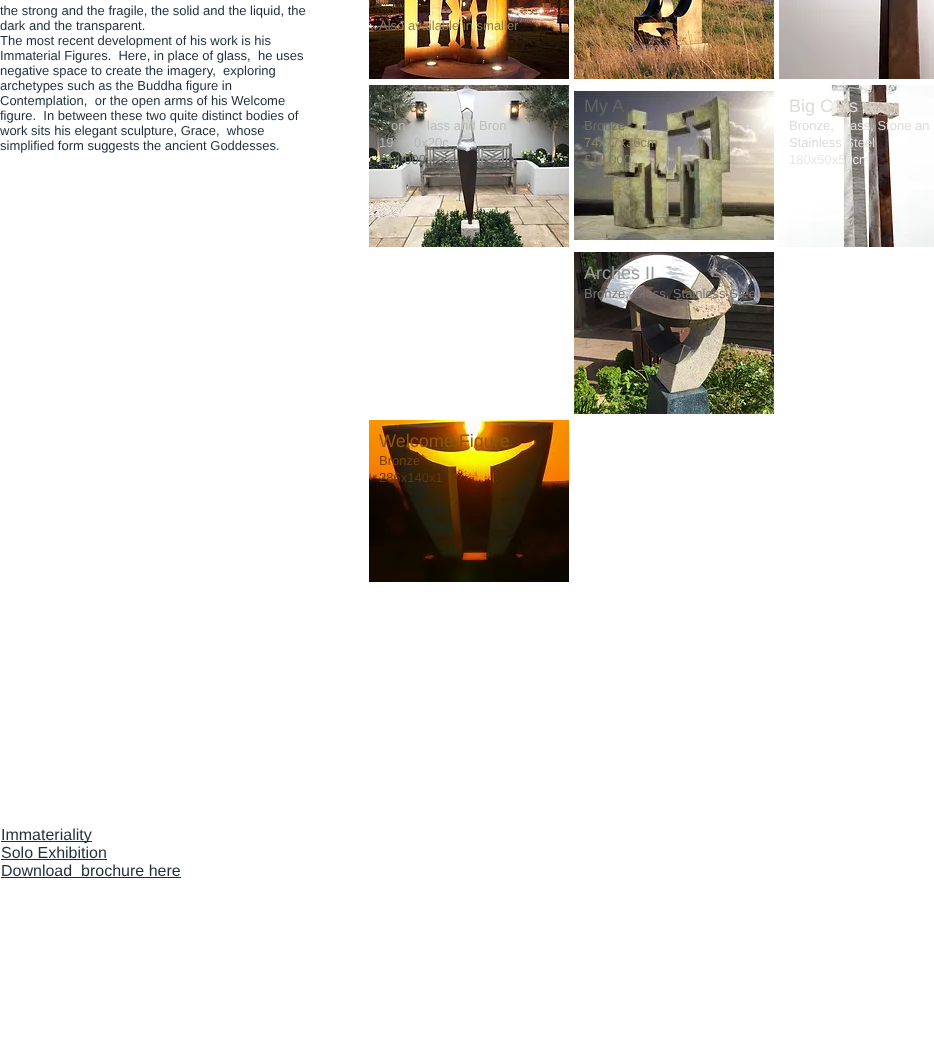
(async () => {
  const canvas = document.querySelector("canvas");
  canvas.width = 934;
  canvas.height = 1044;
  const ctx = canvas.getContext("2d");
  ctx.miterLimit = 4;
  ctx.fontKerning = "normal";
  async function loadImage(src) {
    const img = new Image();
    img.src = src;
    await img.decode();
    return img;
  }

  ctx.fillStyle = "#ffffff";
  ctx.fillRect(0, 0, 934, 1044);
  ctx.drawImage(await loadImage("img/1.png"), 369, 0, 200, 79);
  ctx.drawImage(await loadImage("img/2.png"), 574, 0, 200, 79);
  ctx.drawImage(await loadImage("img/3.png"), 779, 0, 155, 79);
  ctx.drawImage(await loadImage("img/4.png"), 369, 85, 200, 162);
  ctx.drawImage(await loadImage("img/5.png"), 574, 85, 200, 160);
  ctx.drawImage(await loadImage("img/6.png"), 779, 85, 155, 162);
  ctx.drawImage(await loadImage("img/7.png"), 574, 252, 200, 162);
  ctx.drawImage(await loadImage("img/8.png"), 369, 420, 200, 162);
  for (const [x, y, w, h, color] of [
    [1, 841, 91, 1, "#1e2f3b"],
    [1, 859, 106, 1, "#1e2f3b"],
    [1, 877, 180, 1, "#1e2f3b"],
  ]) {
    ctx.fillStyle = color;
    ctx.fillRect(x, y, w, h);
  }
  ctx.font = "13px Liberation Sans";
  for (const [text, x, y] of [
    ["the strong and the fragile, the solid and the liquid, the", 0, 15],
    ["dark and the transparent.", 0, 30],
    ["The most recent development of his work is his", 0, 45],
    ["Immaterial Figures.  Here, in place of glass,  he uses", 0, 60],
    ["negative space to create the imagery,  exploring", 0, 75],
    ["archetypes such as the Buddha figure in", 0, 90],
    ["Contemplation,  or the open arms of his Welcome", 0, 105],
    ["figure.  In between these two quite distinct bodies of", 0, 120],
    ["work sits his elegant sculpture, Grace,  whose", 0, 135],
    ["simplified form suggests the ancient Goddesses.", 0, 150],
  ]) {
    ctx.fillText(text, x, y);
  }
  ctx.fillStyle = "#957d4a";
  ctx.fillText("Also available in smaller", 379, 30);
  ctx.font = "18px Liberation Sans";
  ctx.fillStyle = "#747161";
  ctx.fillText("Grace", 379, 112);
  ctx.font = "13px Liberation Sans";
  ctx.fillStyle = "#bcbeba";
  ctx.fillText("on", 391, 130);
  ctx.fillText("lass and Bron", 427, 130);
  ctx.fillStyle = "#b4b5b4";
  ctx.fillText("19", 379, 147);
  ctx.fillText("0x20c", 414, 147);
  ctx.fillStyle = "#6d7167";
  ctx.fillText("£14,000", 379, 164);
  ctx.font = "18px Liberation Sans";
  ctx.fillStyle = "#646465";
  ctx.fillText("My A", 584, 112);
  ctx.font = "13px Liberation Sans";
  ctx.fillStyle = "#6d7167";
  ctx.fillText("Bronze", 584, 130);
  ctx.fillStyle = "#888367";
  ctx.fillText("74x77x36cm", 584, 147);
  ctx.fillStyle = "#807d65";
  ctx.fillText("£12,000", 584, 164);
  ctx.font = "18px Liberation Sans";
  ctx.fillStyle = "#dedbd8";
  ctx.fillText("Big C", 789, 112);
  ctx.fillText("s", 849, 112);
  ctx.font = "13px Liberation Sans";
  for (const [text, x, y] of [
    ["Bronze,", 789, 130],
    ["ass, Stone an", 850, 130],
    ["Stainless Steel", 789, 147],
  ]) {
    ctx.fillText(text, x, y);
  }
  ctx.fillStyle = "#e9e8e7";
  ctx.fillText("180x50x50cm", 789, 164);
  ctx.font = "18px Liberation Sans";
  ctx.fillStyle = "#999b96";
  ctx.fillText("Arches II", 584, 279);
  ctx.font = "13px Liberation Sans";
  ctx.fillStyle = "#7b7672";
  ctx.fillText("Bronze, Glass, Stainless Steel", 584, 298);
  ctx.fillStyle = "#ab9075";
  ctx.fillText("£", 584, 348);
  ctx.font = "18px Liberation Sans";
  ctx.fillStyle = "#905510";
  ctx.fillText("Welcome Figure", 379, 447);
  ctx.font = "13px Liberation Sans";
  ctx.fillStyle = "#76410a";
  ctx.fillText("Bronze", 379, 465);
  ctx.fillStyle = "#623408";
  ctx.fillText("286x140x1", 379, 482);
  ctx.font = "16px Liberation Sans";
  ctx.fillStyle = "#1e2f3b";
  for (const [text, x, y] of [
    ["Immateriality", 1, 840],
    ["Solo Exhibition", 1, 858],
    ["Download  brochure here", 1, 876],
  ]) {
    ctx.fillText(text, x, y);
  }
})();
